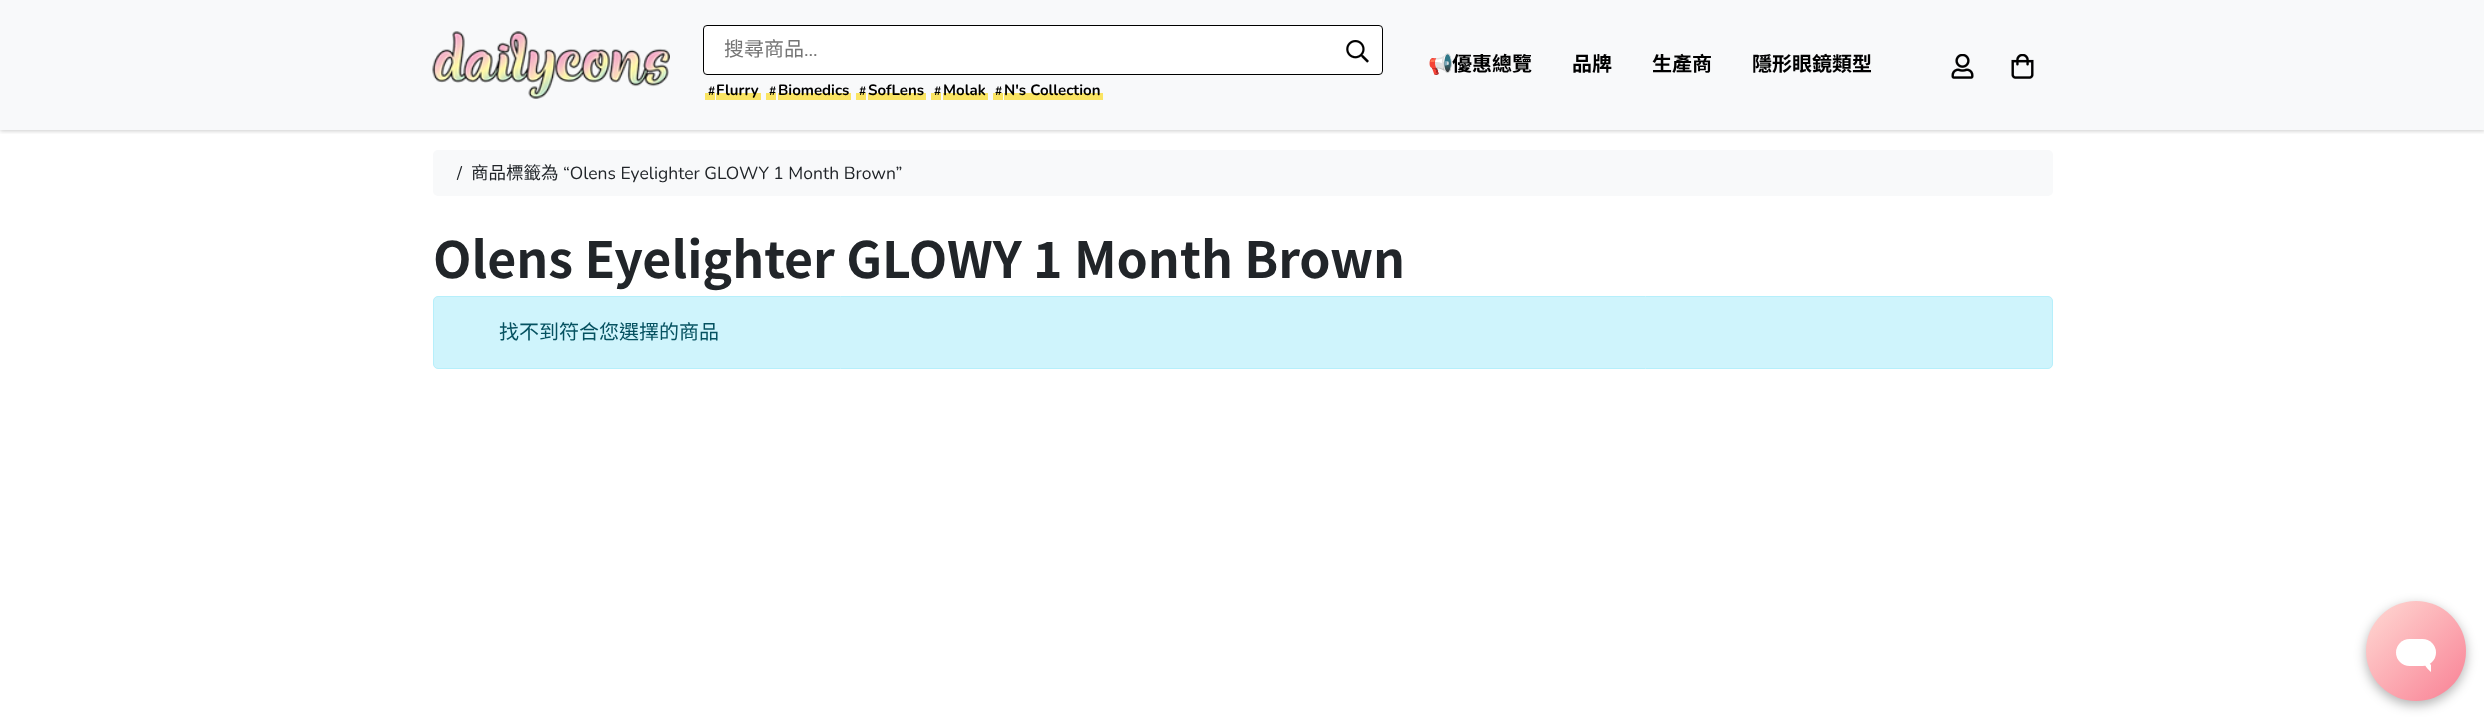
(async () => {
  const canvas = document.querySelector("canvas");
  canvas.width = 2484;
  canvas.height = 720;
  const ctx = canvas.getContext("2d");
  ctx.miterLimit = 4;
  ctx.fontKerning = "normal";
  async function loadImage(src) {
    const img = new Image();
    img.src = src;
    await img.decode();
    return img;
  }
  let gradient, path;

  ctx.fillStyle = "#ffffff";
  ctx.fillRect(0, 0, 2484, 720);
  ctx.fillStyle = "#f8f9fa";
  ctx.fillRect(0, 0, 2484, 130);
  ctx.save();
  ctx.beginPath();
  ctx.rect(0, 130, 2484, 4);
  ctx.clip();
  ctx.fillStyle = "rgba(0, 0, 0, 0.2)";
  ctx.filter = "blur(2px)";
  ctx.beginPath();
  ctx.rect(0, 1, 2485, 130);
  ctx.fill();
  ctx.filter = "none";
  ctx.restore();
  ctx.drawImage(await loadImage("img/1.png"), 432, 31, 238, 68);
  ctx.fillStyle = "#ffffff";
  ctx.beginPath();
  ctx.roundRect(703.5, 25.5, 679, 49, 3.5);
  ctx.fill();
  ctx.strokeStyle = "#000000";
  ctx.stroke();
  ctx.drawImage(await loadImage("img/2.png"), 1346, 40, 23, 23);
  for (const [x, y, w, h, color] of [
    [705, 93, 10, 7, "#fae462"],
    [716, 93, 45, 7, "#fae462"],
    [766, 93, 10, 7, "#fae462"],
    [778, 93, 73, 7, "#fae462"],
    [856, 93, 10, 7, "#fae462"],
    [868, 93, 58, 7, "#fae462"],
    [931, 93, 10, 7, "#fae462"],
    [943, 93, 45, 7, "#fae462"],
    [993, 93, 10, 7, "#fae462"],
    [1004, 93, 99, 7, "#fae462"],
  ]) {
    ctx.fillStyle = color;
    ctx.fillRect(x, y, w, h);
  }
  ctx.drawImage(await loadImage("img/3.png"), 1951, 54, 23, 25);
  ctx.drawImage(await loadImage("img/4.png"), 2011, 54, 23, 25);
  ctx.fillStyle = "rgba(0, 0, 0, 0.3)";
  ctx.filter = "blur(6px)";
  ctx.beginPath();
  ctx.roundRect(2366, 605, 100, 100, 50);
  ctx.fill();
  ctx.filter = "none";
  gradient = ctx.createLinearGradient(2366, 601, 2466, 701);
  gradient.addColorStop(0, "#ffdad4");
  gradient.addColorStop(1, "#f98094");
  ctx.fillStyle = gradient;
  ctx.beginPath();
  ctx.arc(2416, 651, 50, 0, Math.PI * 2);
  ctx.fill();
  ctx.fillStyle = "#ffffff";
  ctx.beginPath();
  ctx.roundRect(2396, 639, 40, 27, 13.5);
  ctx.fill();
  path = new Path2D("M2424.5 658L2431 665V672C2429 670 2424.5 666.5 2424.5 663Z");
  ctx.fill(path);
  ctx.fillStyle = "#f8f9fa";
  ctx.beginPath();
  ctx.roundRect(433, 150, 1620, 46, 5);
  ctx.fill();
  ctx.fillStyle = "#cff4fc";
  ctx.beginPath();
  ctx.roundRect(433.5, 296.5, 1619, 72, 4.5);
  ctx.fill();
  ctx.strokeStyle = "#b6effb";
  ctx.stroke();
  ctx.font = "20px Noto Sans TC";
  ctx.fillStyle = "#757575";
  ctx.fillText("搜尋商品", 724, 56);
  ctx.font = "20px Nunito";
  ctx.fillText("...", 804, 56);
  ctx.font = "bold 12px Nunito";
  ctx.fillStyle = "#000000";
  ctx.fillText("#", 708, 95);
  ctx.font = "bold 15px Nunito";
  ctx.fillText("Flurry", 716, 95);
  ctx.font = "bold 12px Nunito";
  ctx.fillText("#", 769, 95);
  ctx.font = "bold 15px Nunito";
  ctx.fillText("Biomedics", 778, 95);
  ctx.font = "bold 12px Nunito";
  ctx.fillText("#", 859, 95);
  ctx.font = "bold 15px Nunito";
  ctx.fillText("SofLens", 868, 95);
  ctx.font = "bold 12px Nunito";
  ctx.fillText("#", 934, 95);
  ctx.font = "bold 15px Nunito";
  ctx.fillText("Molak", 943, 95);
  ctx.font = "bold 12px Nunito";
  ctx.fillText("#", 995, 95);
  ctx.font = "bold 15px Nunito";
  ctx.fillText("N's Collection", 1004, 95);
  ctx.font = "bold 20px Noto Color Emoji";
  ctx.fillText("📢", 1428, 71);
  ctx.font = "bold 20px Noto Sans TC";
  for (const [text, x, y] of [
    ["優惠總覽", 1452, 71],
    ["品牌", 1572, 71],
    ["生產商", 1652, 71],
    ["隱形眼鏡類型", 1752, 71],
  ]) {
    ctx.fillText(text, x, y);
  }
  ctx.font = "17.5px Nunito";
  ctx.fillStyle = "#212529";
  ctx.fillText("/", 457, 179);
  ctx.font = "17.5px Noto Sans TC";
  ctx.fillText("商品標籤為", 471, 179);
  ctx.font = "17.5px Nunito";
  ctx.fillText("“Olens Eyelighter GLOWY 1 Month Brown”", 563, 179);
  ctx.font = "bold 50px Noto Sans TC";
  ctx.fillText("Olens Eyelighter GLOWY 1 Month Brown", 433, 278);
  ctx.font = "20px Noto Sans TC";
  ctx.fillStyle = "#055160";
  ctx.fillText("找不到符合您選擇的商品", 499, 339);
})();
